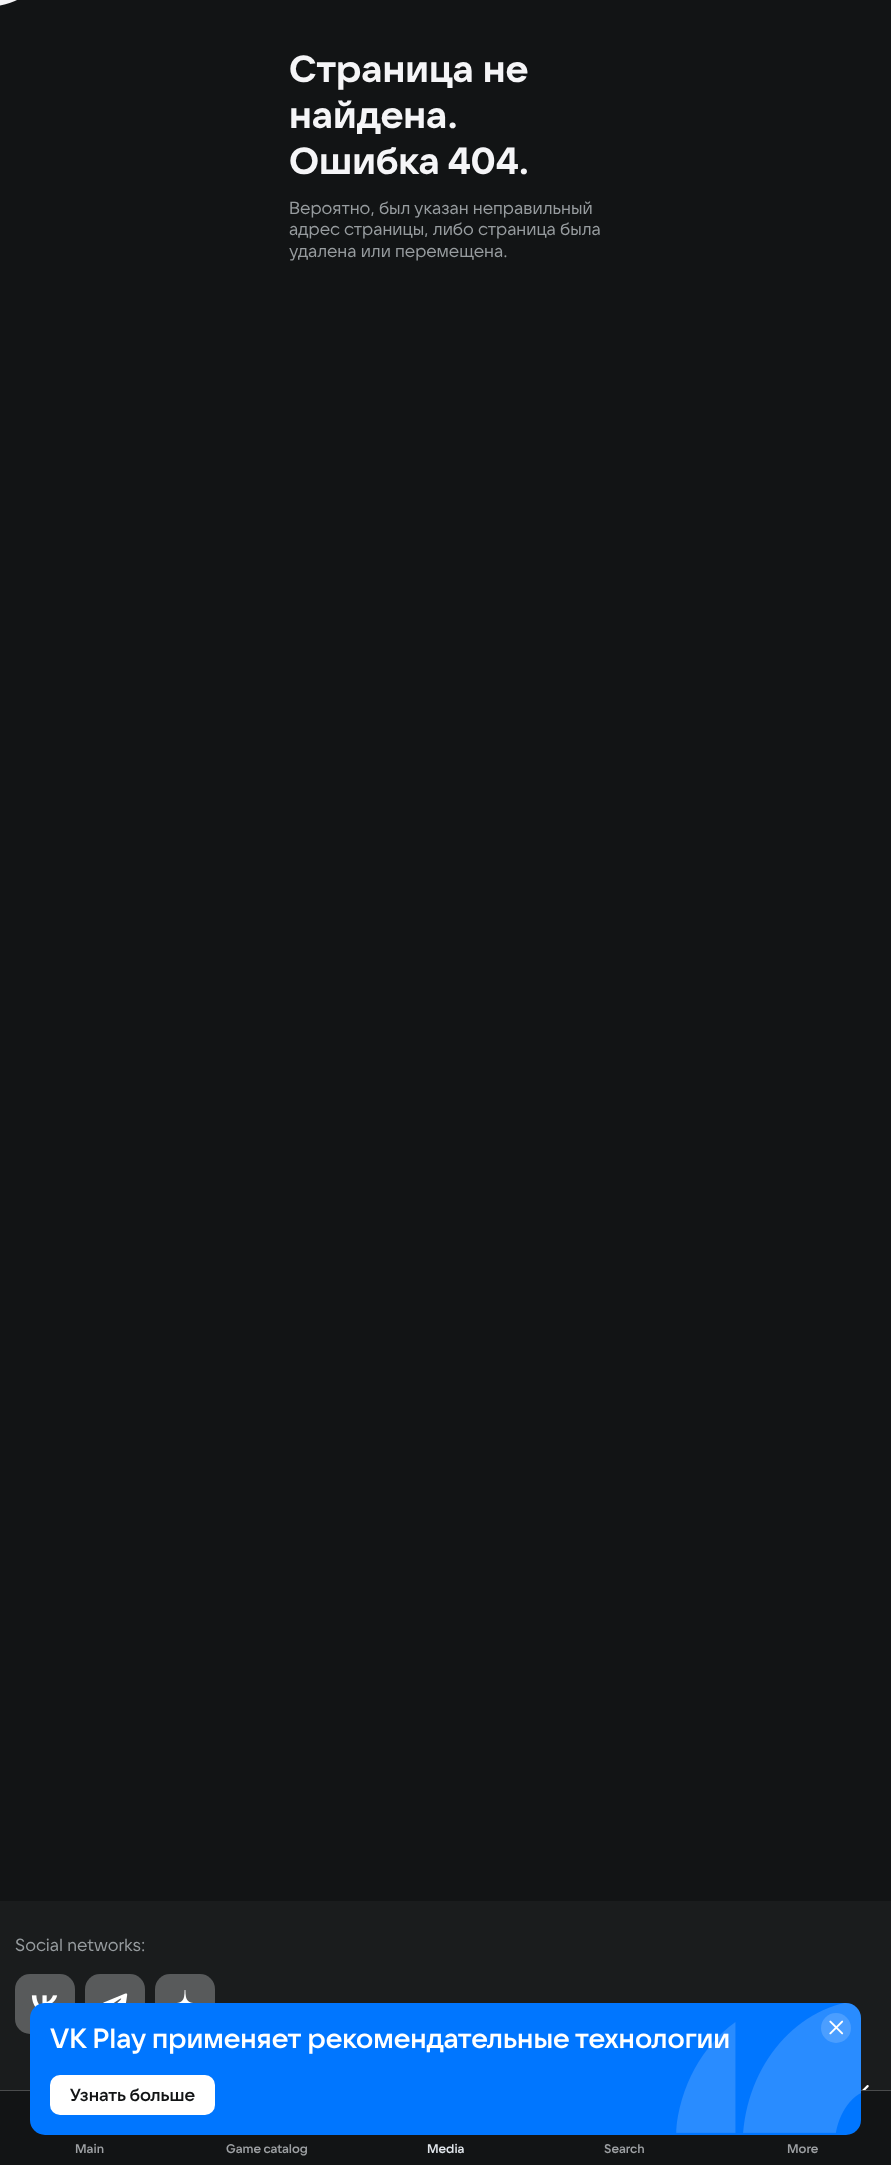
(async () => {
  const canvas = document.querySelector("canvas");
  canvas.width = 891;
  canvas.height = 2165;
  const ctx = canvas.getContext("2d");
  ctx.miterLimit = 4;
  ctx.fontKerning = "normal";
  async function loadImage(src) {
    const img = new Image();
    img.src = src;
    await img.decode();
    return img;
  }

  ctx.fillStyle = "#121415";
  ctx.fillRect(0, 0, 891, 2165);
  ctx.drawImage(await loadImage("img/1.png"), 0, 0, 17, 6);
  ctx.fillStyle = "#1a1c1d";
  ctx.fillRect(0, 1901, 891, 189);
  ctx.fillStyle = "#585a5b";
  ctx.beginPath();
  ctx.roundRect(15, 1974, 60, 60, 15);
  ctx.fill();
  ctx.drawImage(await loadImage("img/2.png"), 31, 1995, 27, 12);
  ctx.beginPath();
  ctx.roundRect(85, 1974, 60, 60, 15);
  ctx.fill();
  ctx.drawImage(await loadImage("img/3.png"), 103, 1993, 25, 10);
  ctx.beginPath();
  ctx.roundRect(155, 1974, 60, 60, 15);
  ctx.fill();
  ctx.drawImage(await loadImage("img/4.png"), 177, 1990, 16, 13);
  ctx.drawImage(await loadImage("img/5.png"), 862, 2085, 7, 5);
  ctx.fillStyle = "#4a4c4d";
  ctx.fillRect(0, 2090, 891, 1);
  ctx.fillStyle = "#0076ff";
  ctx.beginPath();
  ctx.roundRect(30, 2003, 831, 132, 15);
  ctx.fill();
  ctx.drawImage(await loadImage("img/6.png"), 676, 2003, 185, 132);
  ctx.fillStyle = "#4b9eff";
  ctx.beginPath();
  ctx.arc(836, 2028, 15, 0, Math.PI * 2);
  ctx.fill();
  ctx.drawImage(await loadImage("img/7.png"), 829, 2020, 15, 15);
  ctx.fillStyle = "#ffffff";
  ctx.beginPath();
  ctx.roundRect(50, 2075, 165, 40, 10);
  ctx.fill();
  ctx.font = "bold 37.5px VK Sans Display";
  ctx.fillStyle = "#f5f5f7";
  for (const [text, x, y] of [
    ["Страница не", 289, 82],
    ["найдена.", 289, 128],
    ["Ошибка 404.", 289, 174],
  ]) {
    ctx.fillText(text, x, y);
  }
  ctx.font = "17.5px VK Sans Display";
  ctx.fillStyle = "#979c9f";
  for (const [text, x, y] of [
    ["Вероятно, был указан неправильный", 289, 214],
    ["адрес страницы, либо страница была", 289, 235],
    ["удалена или перемещена.", 289, 257],
    ["Social networks:", 15, 1951],
  ]) {
    ctx.fillText(text, x, y);
  }
  ctx.font = "600 27.5px VK Sans Display";
  ctx.fillStyle = "#ffffff";
  ctx.fillText("VK Play применяет рекомендательные технологии", 50, 2048);
  ctx.font = "600 17.5px VK Sans Display";
  ctx.fillStyle = "#121415";
  ctx.fillText("Узнать больше", 70, 2101);
  ctx.font = "600 12.5px VK Sans Display";
  ctx.fillStyle = "#9da0a3";
  ctx.fillText("Main", 75, 2153);
  ctx.fillText("Game catalog", 226, 2153);
  ctx.fillStyle = "#e1e6eb";
  ctx.fillText("Media", 427, 2153);
  ctx.fillStyle = "#9da0a3";
  ctx.fillText("Search", 604, 2153);
  ctx.fillText("More", 787, 2153);
})();
